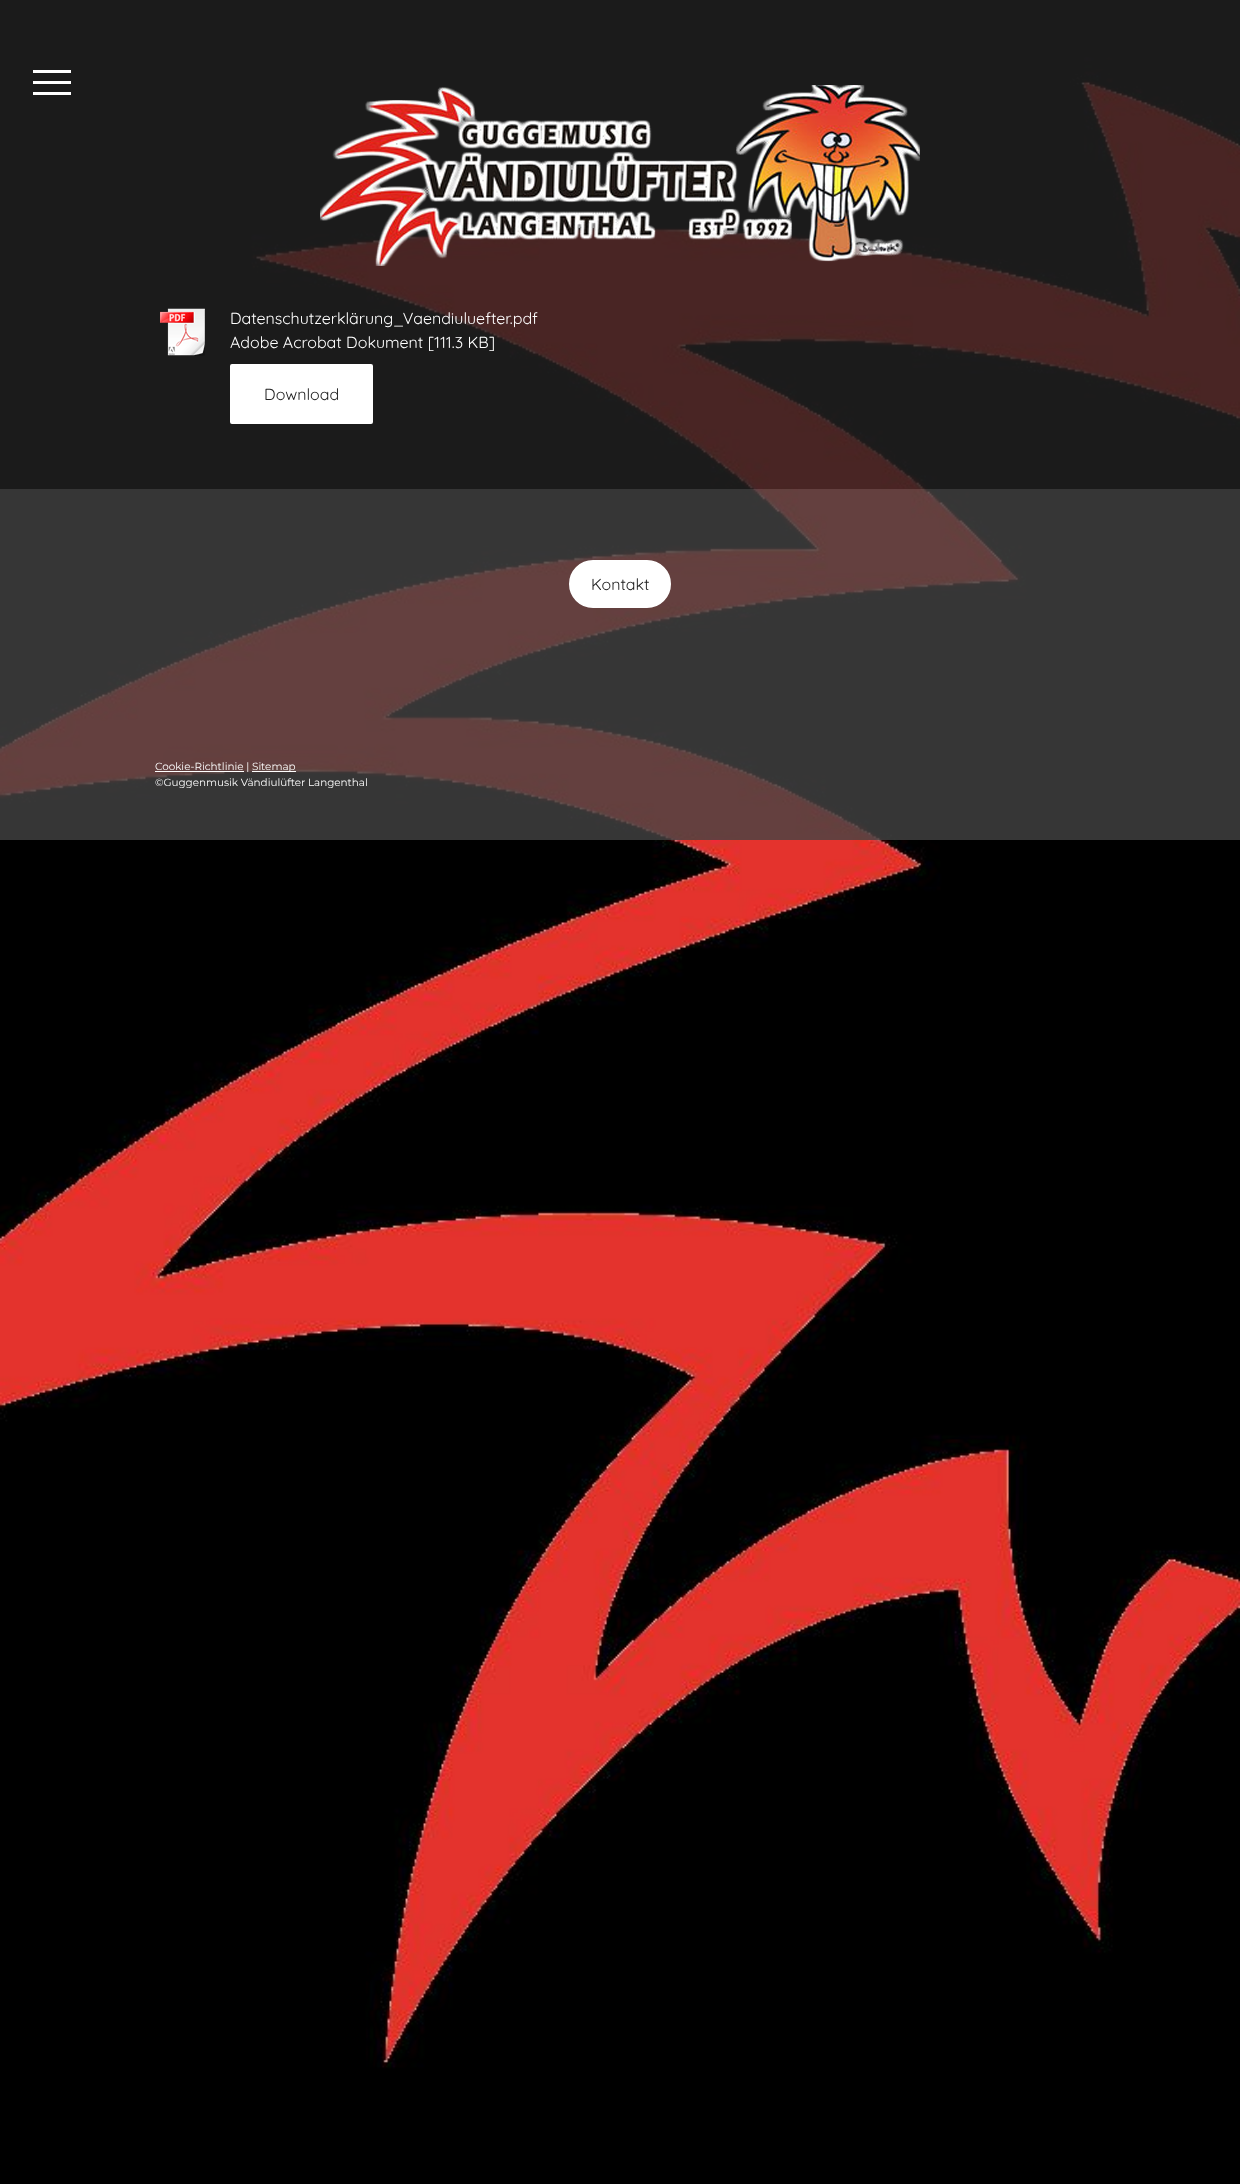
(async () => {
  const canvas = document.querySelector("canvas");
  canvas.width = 1240;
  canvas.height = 2184;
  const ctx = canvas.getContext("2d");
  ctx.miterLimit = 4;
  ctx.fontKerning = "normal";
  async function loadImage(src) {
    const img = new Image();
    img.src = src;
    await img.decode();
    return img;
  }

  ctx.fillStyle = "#ffffff";
  ctx.fillRect(0, 0, 1240, 2184);
  ctx.drawImage(await loadImage("img/1.png"), 0, 0, 1240, 2184);
  for (const [x, y, w, h, color] of [
    [0, 0, 1240, 489, "rgba(34, 34, 34, 0.8)"],
    [33, 81, 38, 3, "#ffffff"],
    [33, 70, 38, 3, "#ffffff"],
    [33, 92, 38, 3, "#ffffff"],
  ]) {
    ctx.fillStyle = color;
    ctx.fillRect(x, y, w, h);
  }
  ctx.drawImage(await loadImage("img/2.png"), 320, 85, 600, 181);
  ctx.drawImage(await loadImage("img/3.png"), 160, 308, 45, 48);
  ctx.beginPath();
  ctx.roundRect(231, 365, 141, 58, 1);
  ctx.fill();
  ctx.strokeStyle = "#ffffff";
  ctx.lineWidth = 2;
  ctx.stroke();
  ctx.fillStyle = "rgba(68, 68, 68, 0.8)";
  ctx.fillRect(0, 489, 1240, 220);
  ctx.fillStyle = "#ffffff";
  ctx.beginPath();
  ctx.roundRect(570, 561, 100, 46, 23);
  ctx.fill();
  ctx.stroke();
  for (const [x, y, w, h, color] of [
    [0, 709, 1240, 131, "rgba(68, 68, 68, 0.8)"],
    [155, 771, 89, 1, "#ffffff"],
    [252, 771, 44, 1, "#ffffff"],
  ]) {
    ctx.fillStyle = color;
    ctx.fillRect(x, y, w, h);
  }
  ctx.font = "300 16px Quicksand";
  ctx.fillText("Datenschutzerklärung_Vaendiuluefter.pdf", 230, 324);
  ctx.fillText("Adobe Acrobat Dokument [111.3 KB]", 230, 348);
  ctx.fillStyle = "#222222";
  ctx.fillText("Download", 264, 400);
  ctx.fillText("Kontakt", 591, 590);
  ctx.font = "10.4px Montserrat";
  ctx.fillStyle = "#ffffff";
  for (const [text, x, y] of [
    ["Cookie-Richtlinie |", 155, 770],
    ["Sitemap", 252, 770],
    ["©Guggenmusik Vändiulüfter Langenthal", 155, 786],
  ]) {
    ctx.fillText(text, x, y);
  }
})();
